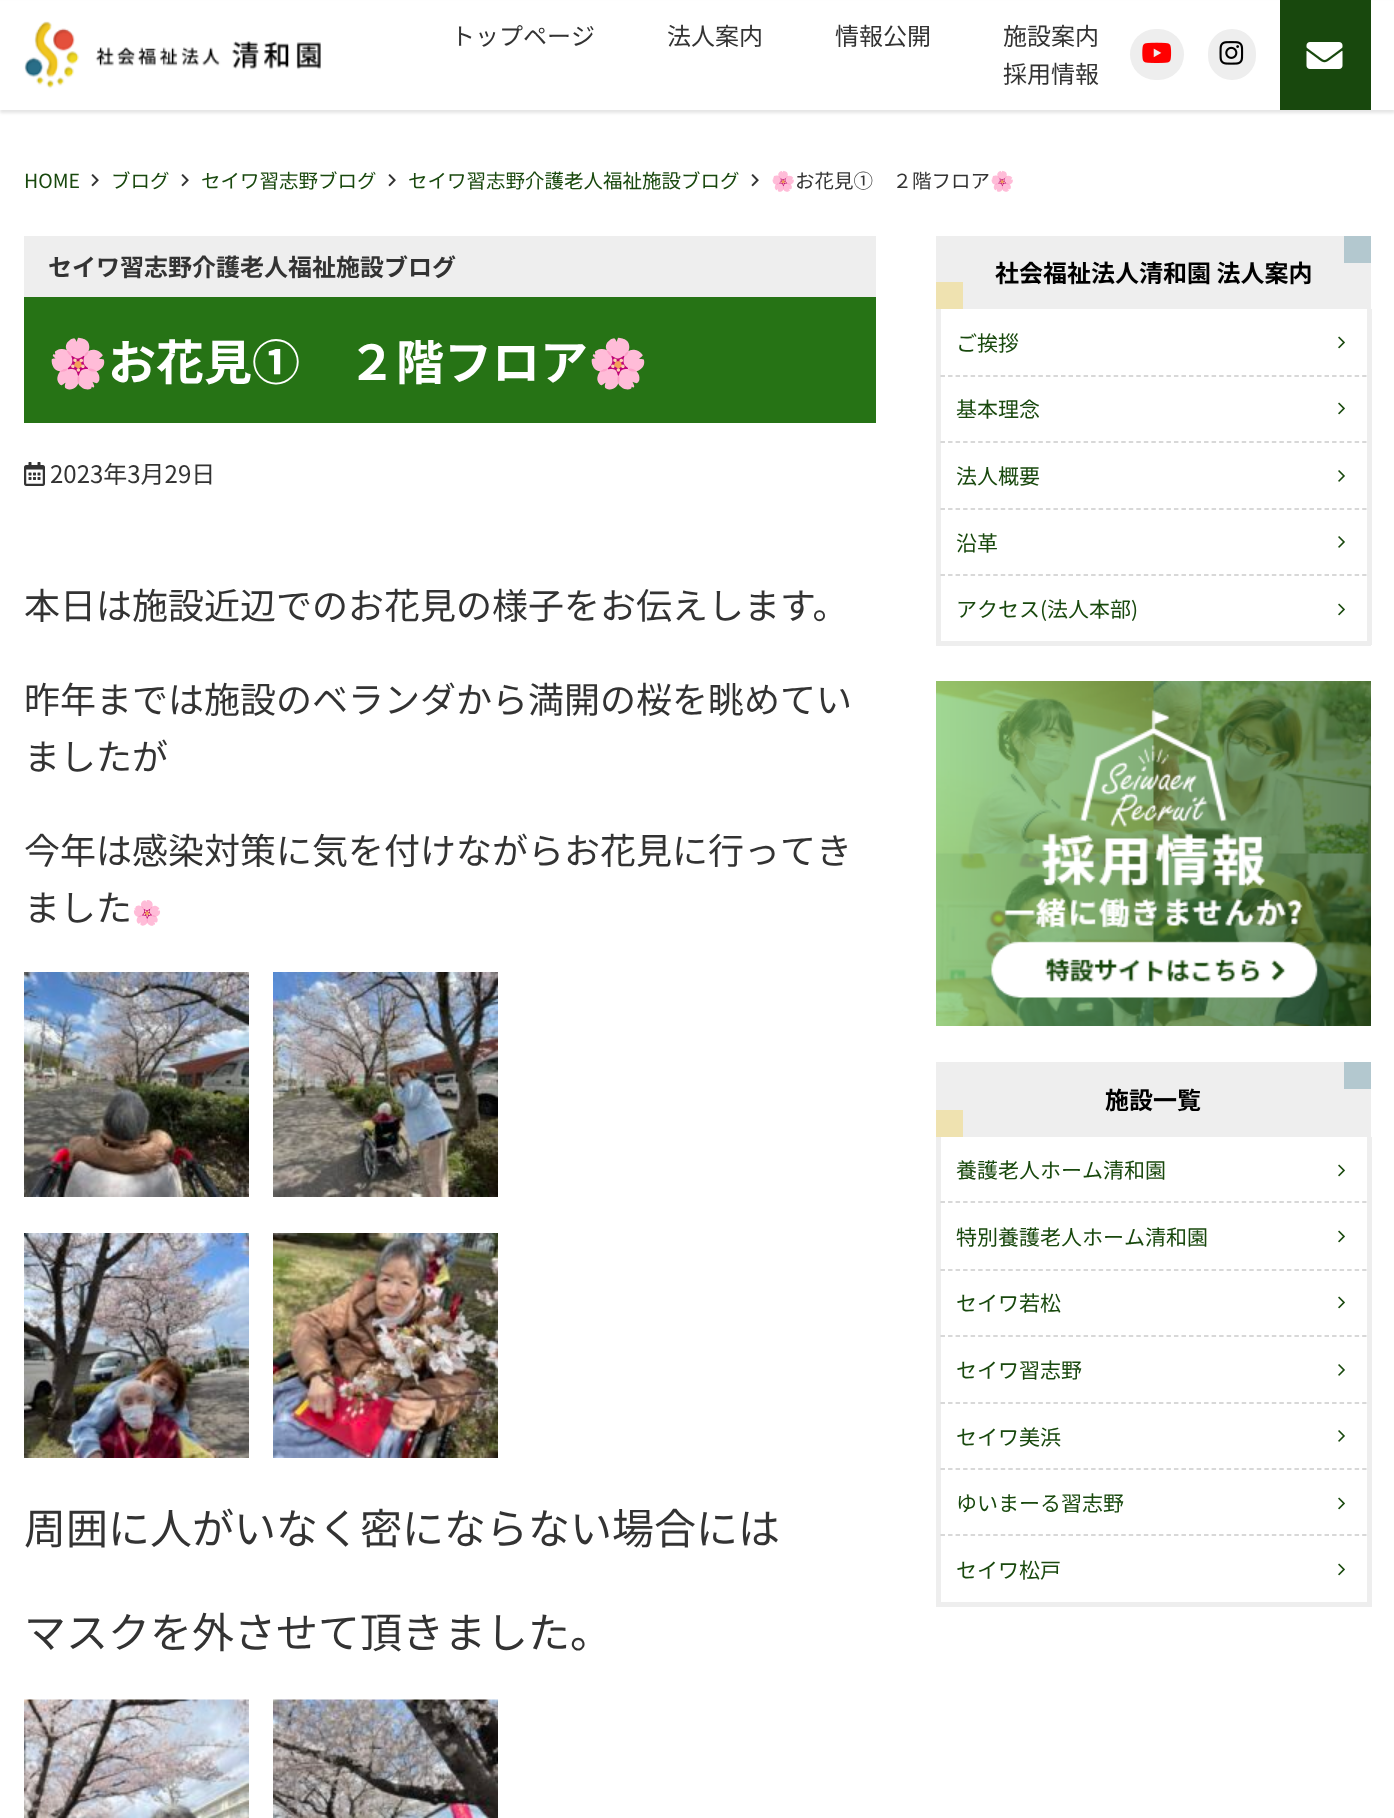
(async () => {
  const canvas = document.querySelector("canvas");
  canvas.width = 1394;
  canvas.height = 1818;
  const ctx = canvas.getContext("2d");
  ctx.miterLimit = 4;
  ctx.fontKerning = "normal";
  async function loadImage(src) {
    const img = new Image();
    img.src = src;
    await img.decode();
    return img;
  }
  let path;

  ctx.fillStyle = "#ffffff";
  ctx.fillRect(0, 0, 1394, 1818);
  ctx.fillStyle = "rgba(0, 0, 0, 0.1)";
  ctx.filter = "blur(1.5px)";
  ctx.beginPath();
  ctx.rect(0, 3, 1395, 110);
  ctx.fill();
  ctx.filter = "none";
  ctx.fillStyle = "#ffffff";
  ctx.fillRect(0, 1, 1394, 109);
  ctx.drawImage(await loadImage("img/1.png"), 24, 21, 297, 68);
  ctx.fillStyle = "#eeeeee";
  ctx.beginPath();
  ctx.roundRect(1130, 29, 54, 51, 25.5);
  ctx.fill();
  ctx.drawImage(await loadImage("img/2.png"), 1142, 42, 30, 21);
  ctx.beginPath();
  ctx.roundRect(1208, 29, 48, 51, 24);
  ctx.fill();
  ctx.drawImage(await loadImage("img/3.png"), 1219, 41, 25, 24);
  ctx.fillStyle = "#18480d";
  ctx.fillRect(1280, 0, 91, 110);
  ctx.drawImage(await loadImage("img/4.png"), 1306, 42, 37, 27);
  ctx.drawImage(await loadImage("img/5.png"), 91, 174, 8, 13);
  ctx.drawImage(await loadImage("img/5.png"), 181, 174, 8, 13);
  ctx.drawImage(await loadImage("img/5.png"), 388, 174, 8, 13);
  ctx.drawImage(await loadImage("img/5.png"), 751, 174, 8, 13);
  ctx.fillStyle = "#eeeeee";
  ctx.fillRect(24, 236, 852, 61);
  ctx.fillStyle = "#267315";
  ctx.fillRect(24, 297, 852, 126);
  ctx.drawImage(await loadImage("img/6.png"), 24, 462, 21, 24);
  ctx.drawImage(await loadImage("img/7.png"), 24, 972, 225, 225);
  ctx.drawImage(await loadImage("img/8.png"), 273, 972, 225, 225);
  ctx.drawImage(await loadImage("img/9.png"), 24, 1233, 225, 225);
  ctx.drawImage(await loadImage("img/10.png"), 273, 1233, 225, 225);
  ctx.drawImage(await loadImage("img/11.png"), 24, 1699, 225, 119);
  ctx.drawImage(await loadImage("img/12.png"), 273, 1699, 225, 119);
  for (const [x, y, w, h, color] of [
    [936, 236, 435, 73, "#eeeeee"],
    [1344, 236, 27, 27, "#b3c8cf"],
    [936, 282, 27, 27, "#efe2b0"],
    [1367, 309, 5, 336, "#eeeeee"],
    [936, 641, 435, 5, "#eeeeee"],
    [936, 309, 5, 336, "#eeeeee"],
  ]) {
    ctx.fillStyle = color;
    ctx.fillRect(x, y, w, h);
  }
  path = new Path2D("M940.5 376H1366.5");
  ctx.strokeStyle = "#cccccc";
  ctx.lineWidth = 1.5;
  ctx.setLineDash([4.5, 3.03]);
  ctx.stroke(path);
  ctx.drawImage(await loadImage("img/13.png"), 1338, 336, 7, 13);
  path = new Path2D("M940.5 442H1366.5");
  ctx.stroke(path);
  ctx.drawImage(await loadImage("img/13.png"), 1338, 402, 7, 13);
  path = new Path2D("M940.5 509H1366.5");
  ctx.stroke(path);
  ctx.drawImage(await loadImage("img/14.png"), 1338, 470, 7, 12);
  path = new Path2D("M940.5 575H1366.5");
  ctx.stroke(path);
  ctx.drawImage(await loadImage("img/14.png"), 1338, 536, 7, 12);
  ctx.drawImage(await loadImage("img/13.png"), 1338, 603, 7, 13);
  ctx.drawImage(await loadImage("img/15.png"), 936, 681, 435, 345);
  for (const [x, y, w, h, color] of [
    [936, 1062, 435, 75, "#eeeeee"],
    [1344, 1062, 27, 27, "#b3c8cf"],
    [936, 1110, 27, 27, "#efe2b0"],
    [1367, 1137, 5, 470, "#eeeeee"],
    [936, 1602, 435, 5, "#eeeeee"],
    [936, 1137, 5, 470, "#eeeeee"],
  ]) {
    ctx.fillStyle = color;
    ctx.fillRect(x, y, w, h);
  }
  path = new Path2D("M940.5 1202H1366.5");
  ctx.stroke(path);
  ctx.drawImage(await loadImage("img/13.png"), 1338, 1164, 7, 13);
  path = new Path2D("M940.5 1270H1366.5");
  ctx.stroke(path);
  ctx.drawImage(await loadImage("img/13.png"), 1338, 1230, 7, 13);
  path = new Path2D("M940.5 1336H1366.5");
  ctx.stroke(path);
  ctx.drawImage(await loadImage("img/13.png"), 1338, 1296, 7, 13);
  path = new Path2D("M940.5 1403H1366.5");
  ctx.stroke(path);
  ctx.drawImage(await loadImage("img/14.png"), 1338, 1364, 7, 12);
  path = new Path2D("M940.5 1469H1366.5");
  ctx.stroke(path);
  ctx.drawImage(await loadImage("img/14.png"), 1338, 1430, 7, 12);
  path = new Path2D("M940.5 1535H1366.5");
  ctx.stroke(path);
  ctx.drawImage(await loadImage("img/13.png"), 1338, 1497, 7, 13);
  ctx.drawImage(await loadImage("img/13.png"), 1338, 1563, 7, 13);
  ctx.font = "24px Noto Sans JP";
  ctx.fillStyle = "#333333";
  for (const [text, x, y] of [
    ["トップページ", 451, 45],
    ["法人案内", 667, 45],
    ["情報公開", 835, 45],
    ["施設案内", 1003, 45],
    ["採用情報", 1003, 83],
  ]) {
    ctx.fillText(text, x, y);
  }
  ctx.font = "19.5px Noto Sans JP";
  ctx.fillStyle = "#18480d";
  for (const [text, x, y] of [
    ["HOME", 24, 188],
    ["ブログ", 111, 188],
    ["セイワ習志野ブログ", 201, 188],
    ["セイワ習志野介護老人福祉施設ブログ", 408, 188],
  ]) {
    ctx.fillText(text, x, y);
  }
  ctx.font = "19.5px Noto Color Emoji";
  ctx.fillStyle = "#333333";
  ctx.fillText("🌸", 771, 188);
  ctx.font = "19.5px Noto Sans JP";
  ctx.fillText("お花見①　２階フロア", 795, 188);
  ctx.font = "19.5px Noto Color Emoji";
  ctx.fillText("🌸", 990, 188);
  ctx.font = "bold 24px Noto Sans JP";
  ctx.fillText("セイワ習志野介護老人福祉施設ブログ", 48, 276);
  ctx.font = "bold 48px Noto Color Emoji";
  ctx.fillStyle = "#ffffff";
  ctx.fillText("🌸", 48, 380);
  ctx.font = "bold 48px Noto Sans JP";
  ctx.fillText("お花見①　２階フロア", 108, 380);
  ctx.font = "bold 48px Noto Color Emoji";
  ctx.fillText("🌸", 588, 380);
  ctx.font = "24px Noto Sans JP";
  ctx.fillStyle = "#333333";
  ctx.fillText("2023年3月29日", 50, 483);
  ctx.font = "36px Noto Sans JP";
  for (const [text, x, y] of [
    ["本日は施設近辺でのお花見の様子をお伝えします。", 24, 619],
    ["昨年までは施設のベランダから満開の桜を眺めてい", 24, 713],
    ["ましたが", 24, 770],
    ["今年は感染対策に気を付けながらお花見に行ってき", 24, 864],
    ["ました", 24, 921],
  ]) {
    ctx.fillText(text, x, y);
  }
  ctx.font = "24px Noto Color Emoji";
  ctx.fillText("🌸", 132, 921);
  ctx.font = "42px Noto Sans JP";
  ctx.fillText("周囲に人がいなく密にならない場合には", 24, 1544);
  ctx.fillText("マスクを外させて頂きました。", 24, 1648);
  ctx.font = "bold 24px Noto Sans JP";
  ctx.fillStyle = "#000000";
  ctx.fillText("社会福祉法人清和園 法人案内", 995, 282);
  ctx.font = "21px Noto Sans JP";
  ctx.fillStyle = "#18480d";
  for (const [text, x, y] of [
    ["ご挨拶", 956, 351],
    ["基本理念", 956, 417],
    ["法人概要", 956, 484],
    ["沿革", 956, 551],
    ["アクセス(法人本部)", 956, 617],
  ]) {
    ctx.fillText(text, x, y);
  }
  ctx.font = "bold 24px Noto Sans JP";
  ctx.fillStyle = "#000000";
  ctx.fillText("施設一覧", 1105, 1109);
  ctx.font = "21px Noto Sans JP";
  ctx.fillStyle = "#18480d";
  for (const [text, x, y] of [
    ["養護老人ホーム清和園", 956, 1178],
    ["特別養護老人ホーム清和園", 956, 1245],
    ["セイワ若松", 956, 1311],
    ["セイワ習志野", 956, 1378],
    ["セイワ美浜", 956, 1445],
    ["ゆいまーる習志野", 956, 1511],
    ["セイワ松戸", 956, 1578],
  ]) {
    ctx.fillText(text, x, y);
  }
})();
